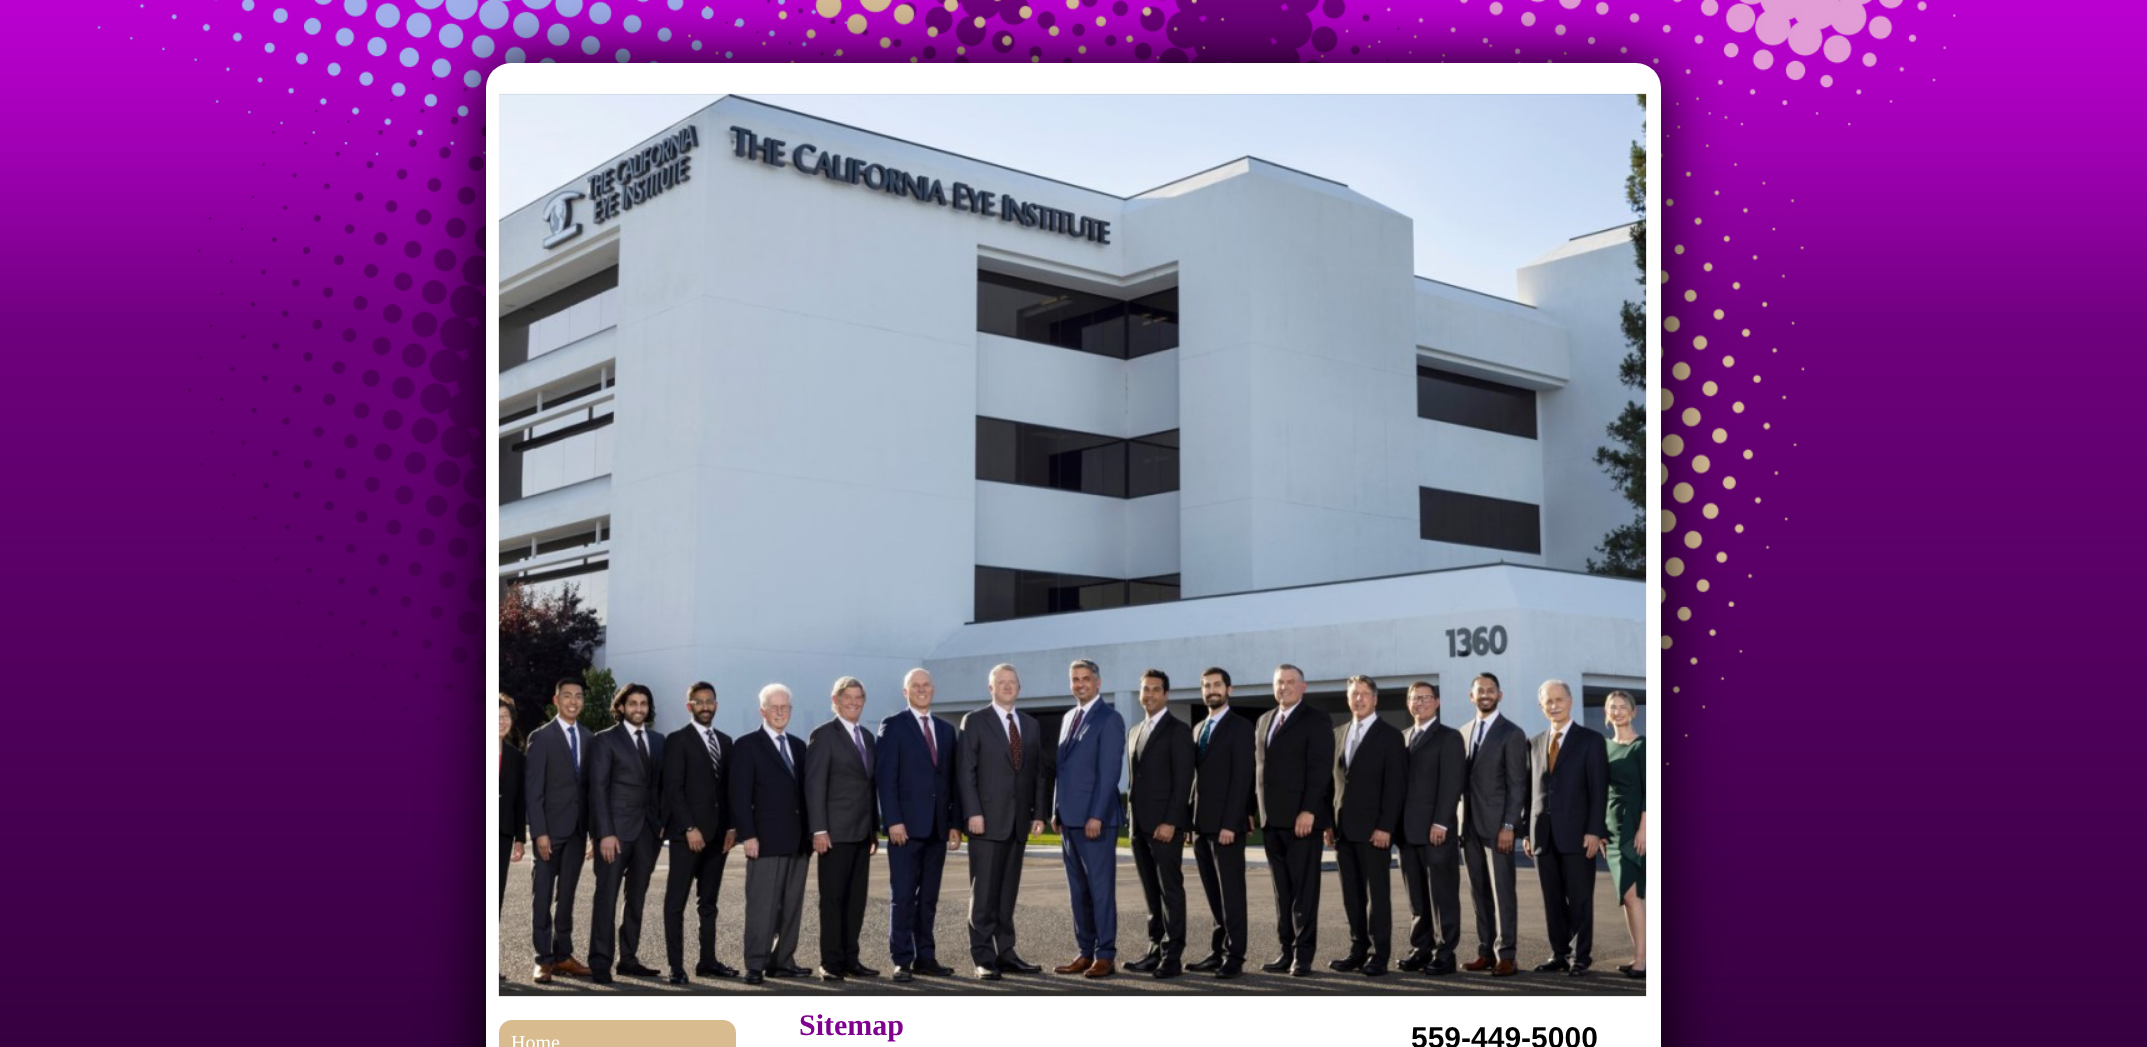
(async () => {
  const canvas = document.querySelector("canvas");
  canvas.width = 2147;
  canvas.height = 1047;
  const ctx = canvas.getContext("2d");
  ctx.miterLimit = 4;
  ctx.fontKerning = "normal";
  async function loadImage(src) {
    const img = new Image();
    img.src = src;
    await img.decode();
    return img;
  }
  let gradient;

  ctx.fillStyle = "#ffffff";
  ctx.fillRect(0, 0, 2147, 1047);
  ctx.drawImage(await loadImage("img/1.png"), 0, 0, 2147, 1047);
  ctx.fillStyle = "#000000";
  ctx.filter = "blur(31px)";
  ctx.beginPath();
  ctx.roundRect(486, 63, 1175, 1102, 25);
  ctx.fill();
  ctx.filter = "none";
  gradient = ctx.createLinearGradient(1074, 62, 1074, 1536);
  gradient.addColorStop(0.68, "#ffffff");
  gradient.addColorStop(1, "#eae0d1");
  ctx.fillStyle = gradient;
  ctx.beginPath();
  ctx.roundRect(486, 63, 1175, 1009, 25);
  ctx.fill();
  ctx.drawImage(await loadImage("img/2.png"), 498, 93, 1149, 904);
  ctx.drawImage(await loadImage("img/3.png"), 498, 93, 1149, 904);
  ctx.fillStyle = "#d8bc8f";
  ctx.beginPath();
  ctx.roundRect(499, 1020, 237, 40, 13);
  ctx.fill();
  ctx.font = "20px Liberation Serif";
  ctx.fillStyle = "#ffffff";
  ctx.fillText("Home", 511, 1049);
  ctx.font = "bold 30px Liberation Serif";
  ctx.fillStyle = "#7f008f";
  ctx.fillText("Sitemap", 799, 1035);
  ctx.font = "bold 30px Liberation Sans";
  ctx.fillStyle = "#000000";
  ctx.fillText("559-449-5000", 1411, 1048);
})();
